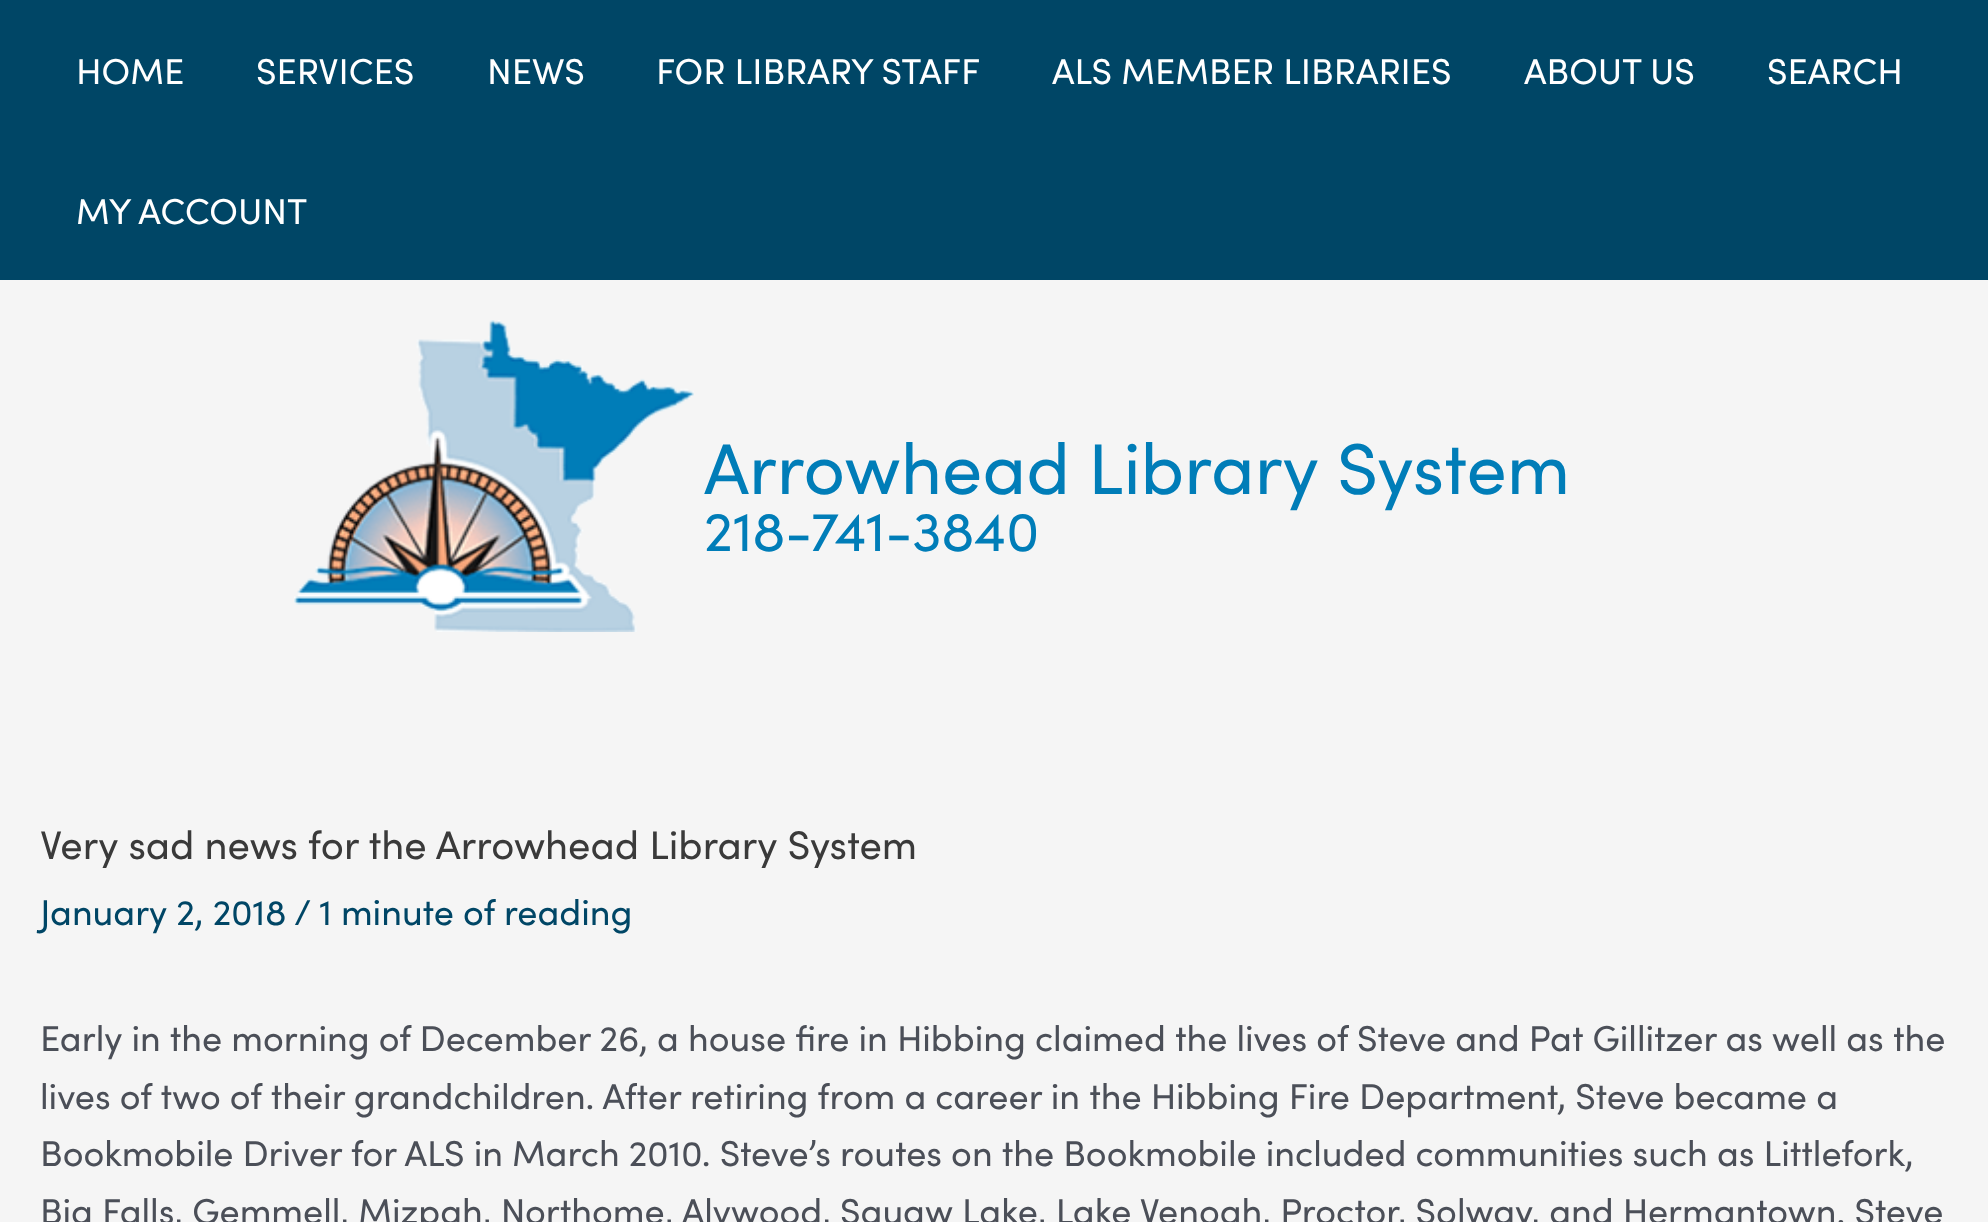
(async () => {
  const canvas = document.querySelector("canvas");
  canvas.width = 1988;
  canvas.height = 1222;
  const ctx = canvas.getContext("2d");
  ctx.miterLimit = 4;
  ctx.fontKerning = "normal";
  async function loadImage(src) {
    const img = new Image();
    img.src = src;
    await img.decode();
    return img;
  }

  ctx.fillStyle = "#f5f5f5";
  ctx.fillRect(0, 0, 1988, 1222);
  ctx.fillStyle = "#004666";
  ctx.fillRect(0, 0, 1988, 280);
  ctx.drawImage(await loadImage("img/1.png"), 294, 320, 400, 312);
  ctx.font = "36px Sofia";
  ctx.fillStyle = "#ffffff";
  for (const [text, x, y] of [
    ["HOME", 76, 84],
    ["SERVICES", 256, 84],
    ["NEWS", 487, 84],
    ["FOR LIBRARY STAFF", 656, 84],
    ["ALS MEMBER LIBRARIES", 1052, 84],
    ["ABOUT US", 1524, 84],
    ["SEARCH", 1767, 84],
    ["MY ACCOUNT", 76, 224],
  ]) {
    ctx.fillText(text, x, y);
  }
  ctx.font = "72px Sofia";
  ctx.fillStyle = "#007db8";
  ctx.fillText("Arrowhead Library System", 704, 494);
  ctx.font = "56px Sofia";
  ctx.fillText("218-741-3840", 704, 551);
  ctx.font = "40px Sofia";
  ctx.fillStyle = "#3a3a3a";
  ctx.fillText("Very sad news for the Arrowhead Library System", 40, 859);
  ctx.font = "36px Sofia";
  ctx.fillStyle = "#004666";
  ctx.fillText("January 2, 2018", 40, 925);
  ctx.fillText("/ 1 minute of reading", 294, 925);
  ctx.fillStyle = "#4b4f58";
  for (const [text, x, y] of [
    ["Early in the morning of December 26, a house fire in Hibbing claimed the lives of Steve and Pat Gillitzer as well as the", 40, 1051],
    ["lives of two of their grandchildren. After retiring from a career in the Hibbing Fire Department, Steve became a", 40, 1109],
    ["Bookmobile Driver for ALS in March 2010. Steve’s routes on the Bookmobile included communities such as Littlefork,", 40, 1166],
    ["Big Falls, Gemmell, Mizpah, Northome, Alvwood, Squaw Lake, Lake Venoah, Proctor, Solway, and Hermantown. Steve", 40, 1224],
  ]) {
    ctx.fillText(text, x, y);
  }
})();
